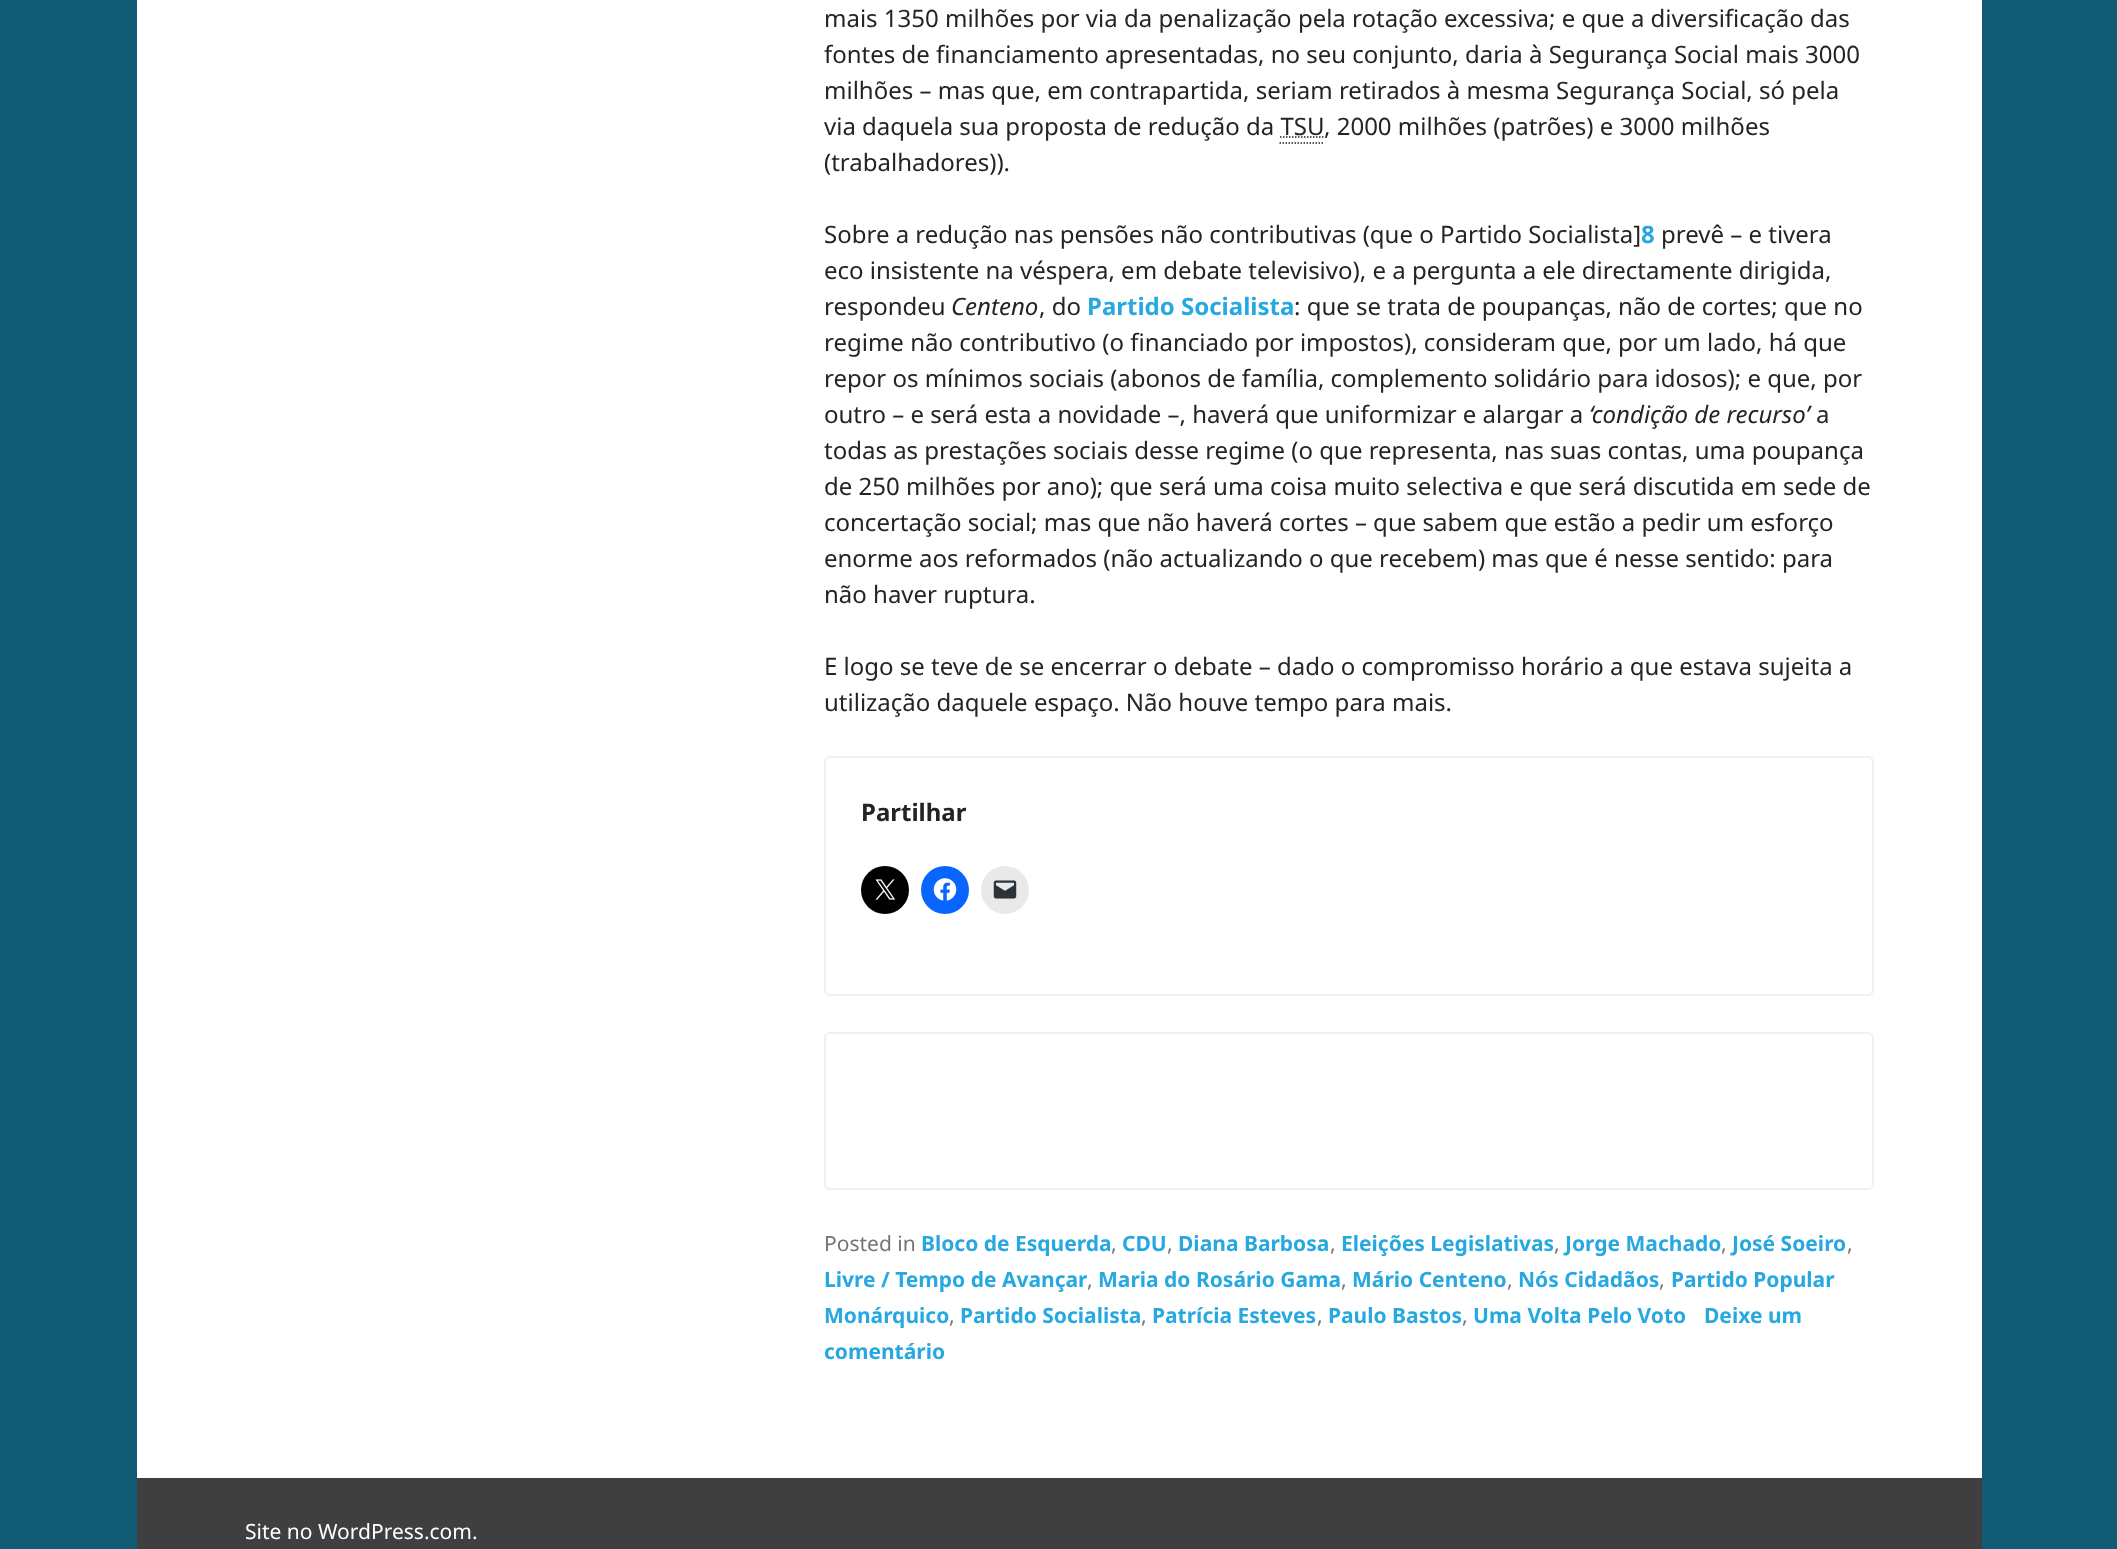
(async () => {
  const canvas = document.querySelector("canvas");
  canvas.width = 2117;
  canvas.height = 1549;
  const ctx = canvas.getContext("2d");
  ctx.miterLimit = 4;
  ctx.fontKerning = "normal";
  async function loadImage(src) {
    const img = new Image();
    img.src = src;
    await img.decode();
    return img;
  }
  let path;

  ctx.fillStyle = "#115b75";
  ctx.fillRect(0, 0, 2117, 1549);
  ctx.fillStyle = "#ffffff";
  ctx.fillRect(137, 0, 1845, 1478);
  path = new Path2D("M1279.5 143H1323M1280 137H1323.5");
  ctx.strokeStyle = "#242424";
  ctx.lineWidth = 1.5;
  ctx.setLineDash([1.5, 1.5]);
  ctx.stroke(path);
  ctx.beginPath();
  ctx.roundRect(825, 757, 1048, 238, 5);
  ctx.strokeStyle = "#f1f0f0";
  ctx.lineWidth = 2;
  ctx.setLineDash([]);
  ctx.stroke();
  ctx.fillStyle = "#000000";
  ctx.beginPath();
  ctx.arc(885, 890, 24, 0, Math.PI * 2);
  ctx.fill();
  ctx.drawImage(await loadImage("img/1.png"), 875, 879, 21, 21);
  ctx.fillStyle = "#0866ff";
  ctx.beginPath();
  ctx.arc(945, 890, 24, 0, Math.PI * 2);
  ctx.fill();
  ctx.drawImage(await loadImage("img/2.png"), 933, 878, 24, 23);
  ctx.fillStyle = "#e9e9e9";
  ctx.beginPath();
  ctx.arc(1005, 890, 24, 0, Math.PI * 2);
  ctx.fill();
  ctx.drawImage(await loadImage("img/3.png"), 993, 880, 24, 19);
  ctx.beginPath();
  ctx.roundRect(825, 1033, 1048, 156, 5);
  ctx.stroke();
  ctx.fillStyle = "#403f3f";
  ctx.fillRect(137, 1478, 1845, 71);
  ctx.font = "24px Noto Sans";
  ctx.fillStyle = "#242424";
  for (const [text, x, y] of [
    ["mais 1350 milhões por via da penalização pela rotação excessiva; e que a diversificação das", 824, 27],
    ["fontes de financiamento apresentadas, no seu conjunto, daria à Segurança Social mais 3000", 824, 63],
    ["milhões – mas que, em contrapartida, seriam retirados à mesma Segurança Social, só pela", 824, 99],
    ["via daquela sua proposta de redução da TSU", 824, 135],
    [", 2000 milhões (patrões) e 3000 milhões", 1324, 135],
    ["(trabalhadores)).", 824, 171],
    ["Sobre a redução nas pensões não contributivas (que o Partido Socialista]", 824, 243],
  ]) {
    ctx.fillText(text, x, y);
  }
  ctx.font = "bold 24px Noto Sans";
  ctx.fillStyle = "#27a8e0";
  ctx.fillText("8", 1641, 243);
  ctx.font = "24px Noto Sans";
  ctx.fillStyle = "#242424";
  for (const [text, x, y] of [
    ["prevê – e tivera", 1661, 243],
    ["eco insistente na véspera, em debate televisivo), e a pergunta a ele directamente dirigida,", 824, 279],
    ["respondeu", 824, 315],
  ]) {
    ctx.fillText(text, x, y);
  }
  ctx.font = "italic 24px Noto Sans";
  ctx.fillText("Centeno", 951, 315);
  ctx.font = "24px Noto Sans";
  ctx.fillText(", do", 1039, 315);
  ctx.font = "bold 24px Noto Sans";
  ctx.fillStyle = "#27a8e0";
  ctx.fillText("Partido Socialista", 1087, 315);
  ctx.font = "24px Noto Sans";
  ctx.fillStyle = "#242424";
  for (const [text, x, y] of [
    [": que se trata de poupanças, não de cortes; que no", 1294, 315],
    ["regime não contributivo (o financiado por impostos), consideram que, por um lado, há que", 824, 351],
    ["repor os mínimos sociais (abonos de família, complemento solidário para idosos); e que, por", 824, 387],
    ["outro – e será esta a novidade –, haverá que uniformizar e alargar a", 824, 423],
  ]) {
    ctx.fillText(text, x, y);
  }
  ctx.font = "italic 24px Noto Sans";
  ctx.fillText("‘condição de recurso’", 1589, 423);
  ctx.font = "24px Noto Sans";
  for (const [text, x, y] of [
    ["a", 1816, 423],
    ["todas as prestações sociais desse regime (o que representa, nas suas contas, uma poupança", 824, 459],
    ["de 250 milhões por ano); que será uma coisa muito selectiva e que será discutida em sede de", 824, 495],
    ["concertação social; mas que não haverá cortes – que sabem que estão a pedir um esforço", 824, 531],
    ["enorme aos reformados (não actualizando o que recebem) mas que é nesse sentido: para", 824, 567],
    ["não haver ruptura.", 824, 603],
    ["E logo se teve de se encerrar o debate – dado o compromisso horário a que estava sujeita a", 824, 675],
    ["utilização daquele espaço. Não houve tempo para mais.", 824, 711],
  ]) {
    ctx.fillText(text, x, y);
  }
  ctx.font = "bold 24px Noto Sans";
  ctx.fillText("Partilhar", 861, 821);
  ctx.font = "21px Noto Sans";
  ctx.fillStyle = "#757575";
  ctx.fillText("Posted in", 824, 1251);
  ctx.font = "bold 21px Noto Sans";
  ctx.fillStyle = "#27a8e0";
  ctx.fillText("Bloco de Esquerda", 921, 1251);
  ctx.font = "21px Noto Sans";
  ctx.fillStyle = "#757575";
  ctx.fillText(",", 1111, 1251);
  ctx.font = "bold 21px Noto Sans";
  ctx.fillStyle = "#27a8e0";
  ctx.fillText("CDU", 1122, 1251);
  ctx.font = "21px Noto Sans";
  ctx.fillStyle = "#757575";
  ctx.fillText(",", 1167, 1251);
  ctx.font = "bold 21px Noto Sans";
  ctx.fillStyle = "#27a8e0";
  ctx.fillText("Diana Barbosa", 1178, 1251);
  ctx.font = "21px Noto Sans";
  ctx.fillStyle = "#757575";
  ctx.fillText(",", 1330, 1251);
  ctx.font = "bold 21px Noto Sans";
  ctx.fillStyle = "#27a8e0";
  ctx.fillText("Eleições Legislativas", 1341, 1251);
  ctx.font = "21px Noto Sans";
  ctx.fillStyle = "#757575";
  ctx.fillText(",", 1554, 1251);
  ctx.font = "bold 21px Noto Sans";
  ctx.fillStyle = "#27a8e0";
  ctx.fillText("Jorge Machado", 1565, 1251);
  ctx.font = "21px Noto Sans";
  ctx.fillStyle = "#757575";
  ctx.fillText(",", 1721, 1251);
  ctx.font = "bold 21px Noto Sans";
  ctx.fillStyle = "#27a8e0";
  ctx.fillText("José Soeiro", 1732, 1251);
  ctx.font = "21px Noto Sans";
  ctx.fillStyle = "#757575";
  ctx.fillText(",", 1847, 1251);
  ctx.font = "bold 21px Noto Sans";
  ctx.fillStyle = "#27a8e0";
  ctx.fillText("Livre / Tempo de Avançar", 824, 1287);
  ctx.font = "21px Noto Sans";
  ctx.fillStyle = "#757575";
  ctx.fillText(",", 1087, 1287);
  ctx.font = "bold 21px Noto Sans";
  ctx.fillStyle = "#27a8e0";
  ctx.fillText("Maria do Rosário Gama", 1098, 1287);
  ctx.font = "21px Noto Sans";
  ctx.fillStyle = "#757575";
  ctx.fillText(",", 1341, 1287);
  ctx.font = "bold 21px Noto Sans";
  ctx.fillStyle = "#27a8e0";
  ctx.fillText("Mário Centeno", 1352, 1287);
  ctx.font = "21px Noto Sans";
  ctx.fillStyle = "#757575";
  ctx.fillText(",", 1507, 1287);
  ctx.font = "bold 21px Noto Sans";
  ctx.fillStyle = "#27a8e0";
  ctx.fillText("Nós Cidadãos", 1518, 1287);
  ctx.font = "21px Noto Sans";
  ctx.fillStyle = "#757575";
  ctx.fillText(",", 1659, 1287);
  ctx.font = "bold 21px Noto Sans";
  ctx.fillStyle = "#27a8e0";
  ctx.fillText("Partido Popular", 1671, 1287);
  ctx.fillText("Monárquico", 824, 1323);
  ctx.font = "21px Noto Sans";
  ctx.fillStyle = "#757575";
  ctx.fillText(",", 949, 1323);
  ctx.font = "bold 21px Noto Sans";
  ctx.fillStyle = "#27a8e0";
  ctx.fillText("Partido Socialista", 960, 1323);
  ctx.font = "21px Noto Sans";
  ctx.fillStyle = "#757575";
  ctx.fillText(",", 1141, 1323);
  ctx.font = "bold 21px Noto Sans";
  ctx.fillStyle = "#27a8e0";
  ctx.fillText("Patrícia Esteves", 1152, 1323);
  ctx.font = "21px Noto Sans";
  ctx.fillStyle = "#757575";
  ctx.fillText(",", 1317, 1323);
  ctx.font = "bold 21px Noto Sans";
  ctx.fillStyle = "#27a8e0";
  ctx.fillText("Paulo Bastos", 1328, 1323);
  ctx.font = "21px Noto Sans";
  ctx.fillStyle = "#757575";
  ctx.fillText(",", 1462, 1323);
  ctx.font = "bold 21px Noto Sans";
  ctx.fillStyle = "#27a8e0";
  for (const [text, x, y] of [
    ["Uma Volta Pelo Voto", 1473, 1323],
    ["Deixe um", 1704, 1323],
    ["comentário", 824, 1359],
  ]) {
    ctx.fillText(text, x, y);
  }
  ctx.font = "21px Noto Sans";
  ctx.fillStyle = "#ffffff";
  ctx.fillText("Site no WordPress.com.", 245, 1539);
})();
